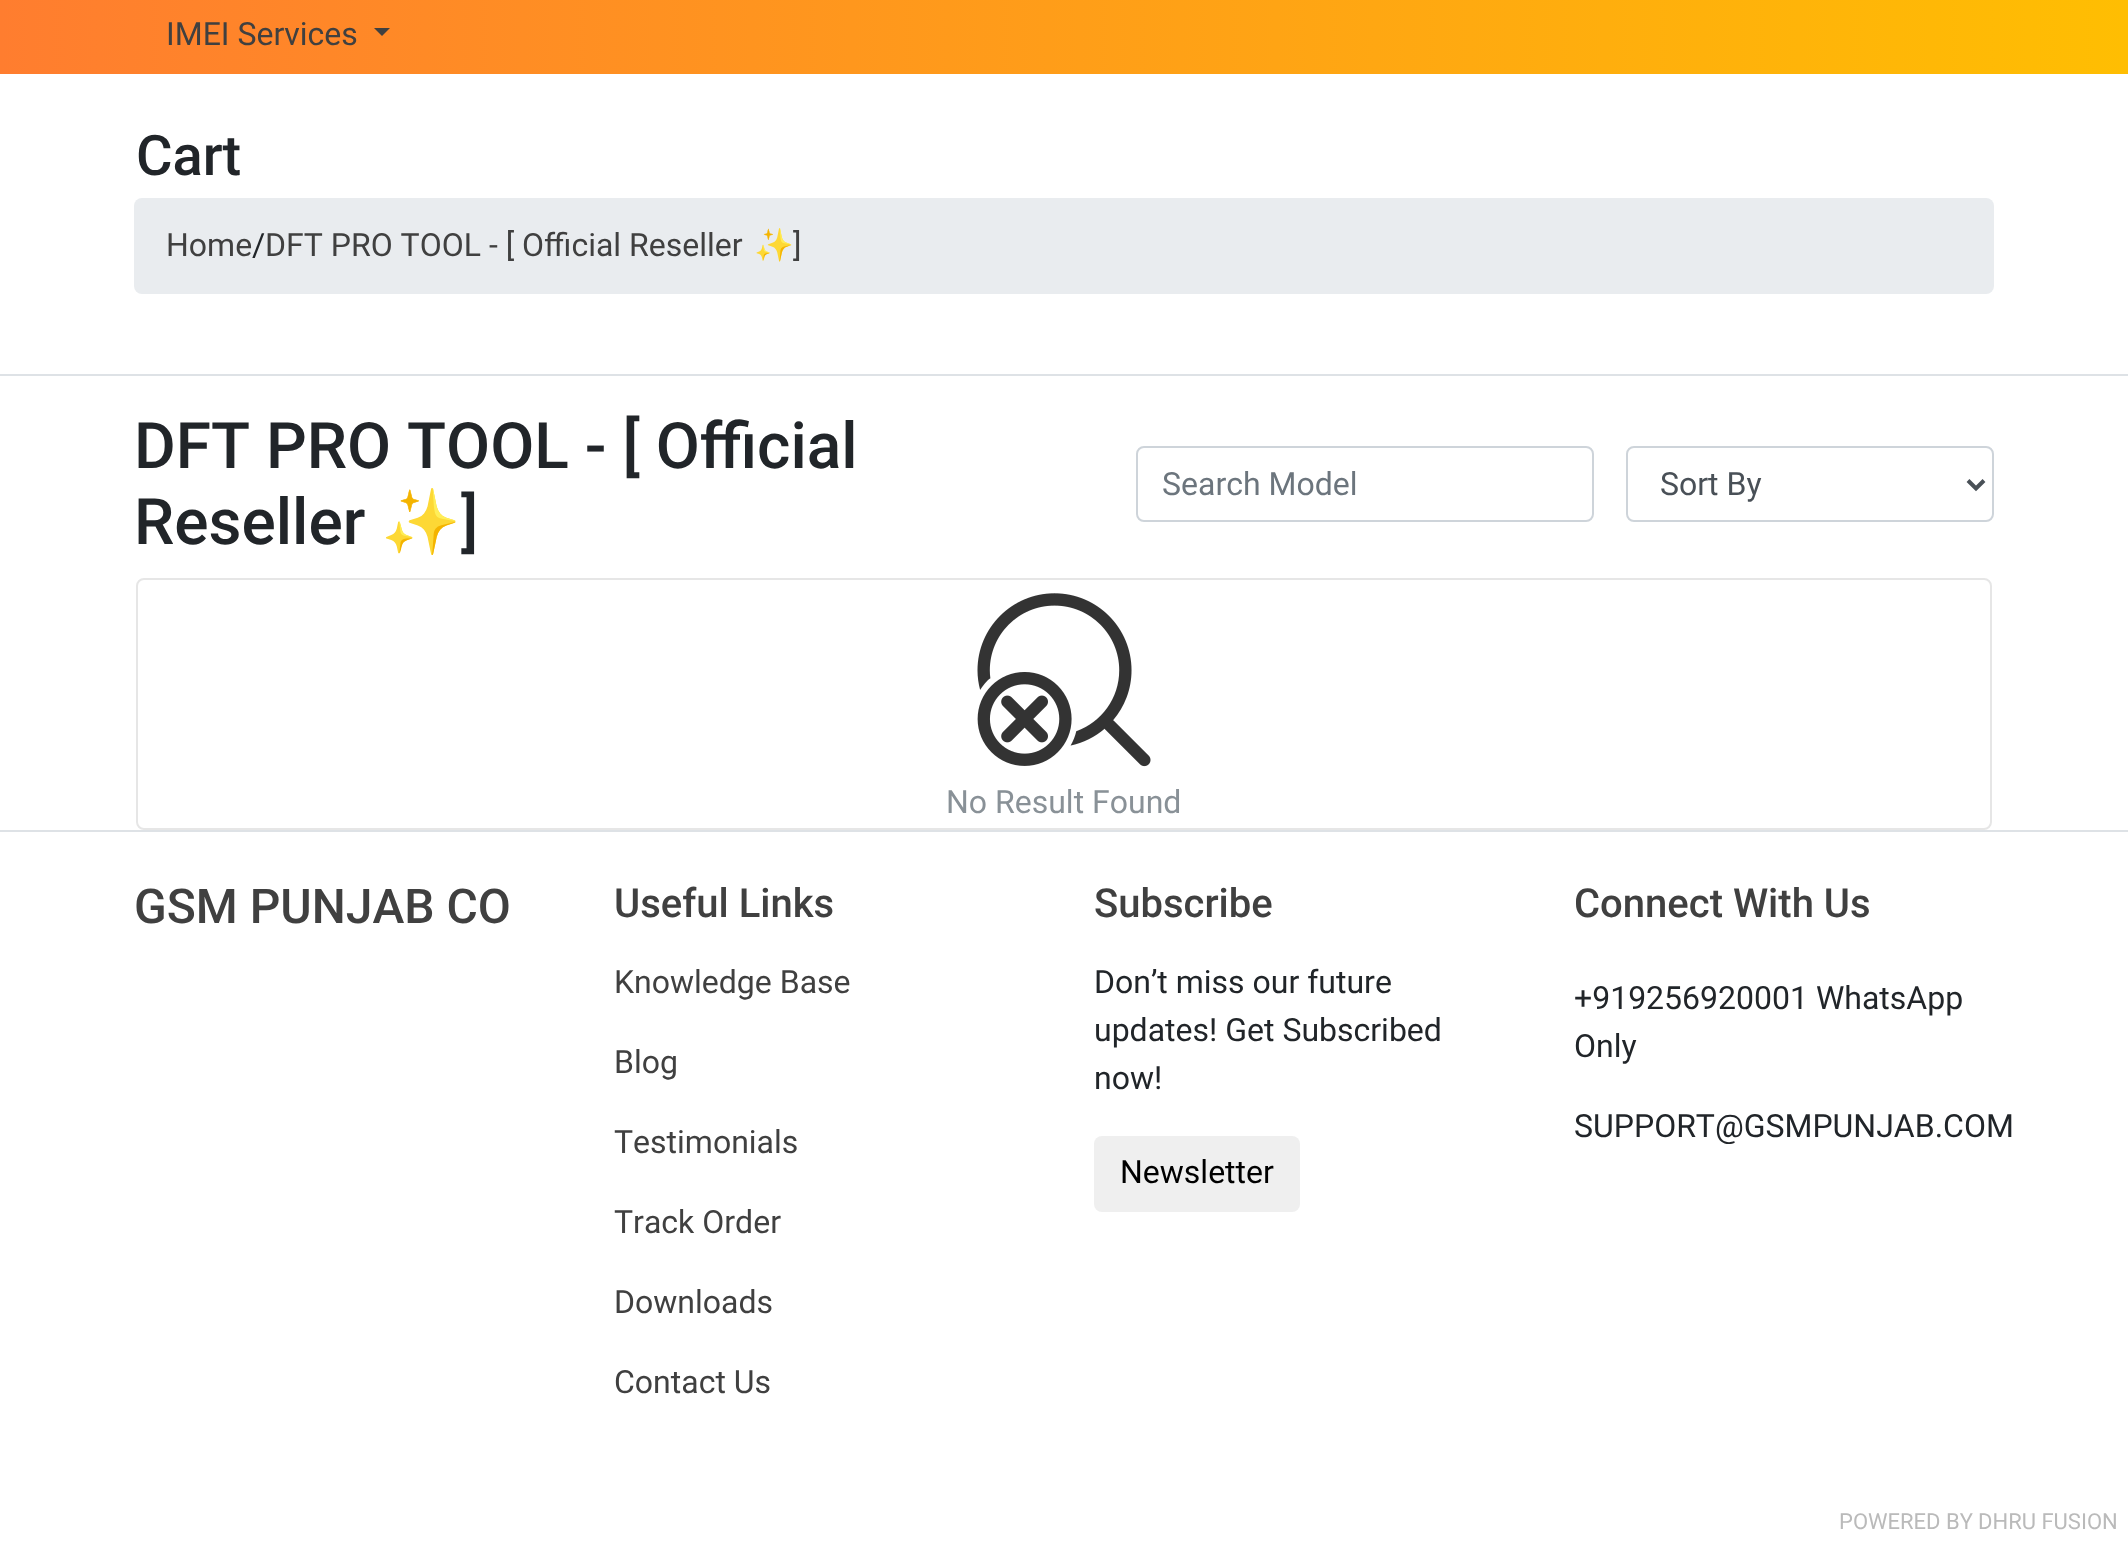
(async () => {
  const canvas = document.querySelector("canvas");
  canvas.width = 2128;
  canvas.height = 1544;
  const ctx = canvas.getContext("2d");
  ctx.miterLimit = 4;
  ctx.fontKerning = "none";
  async function loadImage(src) {
    const img = new Image();
    img.src = src;
    await img.decode();
    return img;
  }
  let gradient, path;

  ctx.fillStyle = "#ffffff";
  ctx.fillRect(0, 0, 2128, 1544);
  gradient = ctx.createLinearGradient(0, 34, 2128, 34);
  gradient.addColorStop(0, "#ff7d2f");
  gradient.addColorStop(1, "#ffbe02");
  ctx.fillStyle = gradient;
  ctx.fillRect(0, 0, 2128, 74);
  ctx.fillStyle = "#404040";
  path = new Path2D("M374 28H390L382 36Z");
  ctx.fill(path);
  ctx.fillStyle = "#dee2e6";
  ctx.fillRect(0, 374, 2128, 2);
  ctx.fillStyle = "#e9ecef";
  ctx.beginPath();
  ctx.roundRect(134, 198, 1860, 96, 8);
  ctx.fill();
  ctx.beginPath();
  ctx.roundRect(1137, 447, 456, 74, 7);
  ctx.strokeStyle = "#ced4da";
  ctx.lineWidth = 2;
  ctx.stroke();
  ctx.beginPath();
  ctx.roundRect(1627, 447, 366, 74, 7);
  ctx.stroke();
  path = new Path2D("M1968 480.5L1976 488.5L1984 480.5");
  ctx.strokeStyle = "#495057";
  ctx.lineWidth = 4;
  ctx.stroke(path);
  ctx.beginPath();
  ctx.roundRect(137, 579, 1854, 250, 7);
  ctx.strokeStyle = "#e6e6e6";
  ctx.lineWidth = 2;
  ctx.stroke();
  ctx.drawImage(await loadImage("img/1.png"), 977, 593, 174, 174);
  ctx.fillStyle = "#dee2e6";
  ctx.fillRect(0, 830, 2128, 2);
  ctx.fillStyle = "#efefef";
  ctx.beginPath();
  ctx.roundRect(1094, 1136, 206, 76, 8);
  ctx.fill();
  ctx.font = "32px Roboto";
  ctx.fillStyle = "#404040";
  ctx.fillText("IMEI Services", 166, 45);
  ctx.font = "500 56px Roboto";
  ctx.fillStyle = "#212529";
  ctx.fillText("Cart", 136, 175);
  ctx.font = "32px Roboto";
  ctx.fillStyle = "#404040";
  ctx.fillText("Home", 166, 256);
  ctx.fillStyle = "#212529";
  ctx.fillText("/", 252, 256);
  ctx.fillStyle = "#404040";
  ctx.fillText("DFT PRO TOOL - [ Official Reseller", 265, 256);
  ctx.font = "32px Noto Color Emoji";
  ctx.fillText("✨", 754, 256);
  ctx.font = "32px Roboto";
  ctx.fillText("]", 793, 256);
  ctx.font = "500 64px Roboto";
  ctx.fillStyle = "#212529";
  ctx.fillText("DFT PRO TOOL - [ Official", 134, 468);
  ctx.fillText("Reseller", 134, 544);
  ctx.font = "64px Noto Color Emoji";
  ctx.fillText("✨", 381, 544);
  ctx.font = "500 64px Roboto";
  ctx.fillText("]", 461, 544);
  ctx.font = "32px Roboto";
  ctx.fillStyle = "#6c757d";
  ctx.fillText("Search Model", 1162, 495);
  ctx.fillStyle = "#495057";
  ctx.fillText("Sort By", 1660, 495);
  ctx.fillStyle = "#899197";
  ctx.fillText("No Result Found", 946, 813);
  ctx.font = "500 48px Roboto";
  ctx.fillStyle = "#404040";
  ctx.fillText("GSM PUNJAB CO", 134, 923);
  ctx.font = "500 40px Roboto";
  ctx.fillText("Useful Links", 614, 917);
  ctx.font = "32px Roboto";
  for (const [text, x, y] of [
    ["Knowledge Base", 614, 993],
    ["Blog", 614, 1073],
    ["Testimonials", 614, 1153],
    ["Track Order", 614, 1233],
    ["Downloads", 614, 1313],
    ["Contact Us", 614, 1393],
  ]) {
    ctx.fillText(text, x, y);
  }
  ctx.font = "500 40px Roboto";
  ctx.fillText("Subscribe", 1094, 917);
  ctx.font = "32px Roboto";
  ctx.fillStyle = "#212529";
  for (const [text, x, y] of [
    ["Don’t miss our future", 1094, 993],
    ["updates! Get Subscribed", 1094, 1041],
    ["now!", 1094, 1089],
  ]) {
    ctx.fillText(text, x, y);
  }
  ctx.fillStyle = "#000000";
  ctx.fillText("Newsletter", 1120, 1183);
  ctx.font = "500 40px Roboto";
  ctx.fillStyle = "#404040";
  ctx.fillText("Connect With Us", 1574, 917);
  ctx.font = "32px Roboto";
  ctx.fillStyle = "#212529";
  for (const [text, x, y] of [
    ["+919256920001 WhatsApp", 1574, 1009],
    ["Only", 1574, 1057],
    ["SUPPORT@GSMPUNJAB.COM", 1574, 1137],
  ]) {
    ctx.fillText(text, x, y);
  }
  ctx.font = "22px Roboto";
  ctx.fillStyle = "#bababa";
  ctx.fillText("POWERED BY", 1839, 1529);
  ctx.fillText("DHRU FUSION", 1978, 1529);
})();
